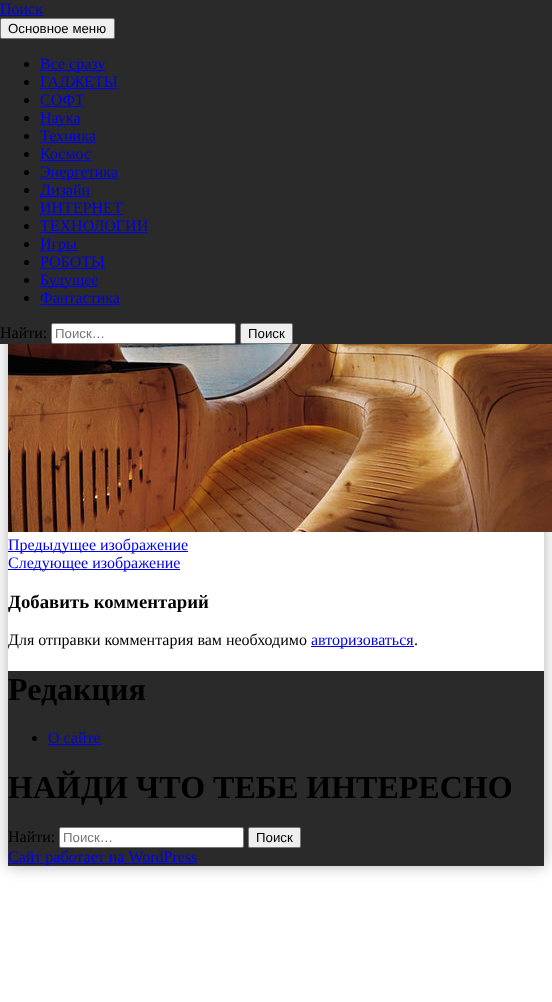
(async () => {
  const canvas = document.querySelector("canvas");
  canvas.width = 552;
  canvas.height = 1002;
  const ctx = canvas.getContext("2d");
  ctx.miterLimit = 4;
  ctx.fontKerning = "normal";
  async function loadImage(src) {
    const img = new Image();
    img.src = src;
    await img.decode();
    return img;
  }
  let path;

  ctx.fillStyle = "#ffffff";
  ctx.fillRect(0, 0, 552, 1002);
  ctx.save();
  path = new Path2D("M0 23H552V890H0ZM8 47H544V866H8Z");
  ctx.clip(path, "evenodd");
  ctx.fillStyle = "#b1b1b1";
  ctx.filter = "blur(7.5px)";
  ctx.beginPath();
  ctx.rect(8, 47, 536, 819);
  ctx.fill();
  ctx.filter = "none";
  ctx.restore();
  ctx.fillStyle = "#2a2a2a";
  ctx.fillRect(0, 0, 552, 344);
  ctx.fillStyle = "#0000ee";
  ctx.fillRect(0, 15, 43, 1);
  ctx.fillStyle = "#efefef";
  ctx.beginPath();
  ctx.roundRect(0.5, 18.5, 114, 20, 1.5);
  ctx.fill();
  ctx.strokeStyle = "#767676";
  ctx.stroke();
  ctx.fillStyle = "#000000";
  ctx.beginPath();
  ctx.arc(26.5, 64.5, 2.5, 0, Math.PI * 2);
  ctx.fill();
  ctx.fillStyle = "#0000ee";
  ctx.fillRect(40, 70, 65, 1);
  ctx.fillStyle = "#000000";
  ctx.beginPath();
  ctx.arc(26.5, 82.5, 2.5, 0, Math.PI * 2);
  ctx.fill();
  ctx.fillStyle = "#0000ee";
  ctx.fillRect(40, 88, 78, 1);
  ctx.fillStyle = "#000000";
  ctx.beginPath();
  ctx.arc(26.5, 100.5, 2.5, 0, Math.PI * 2);
  ctx.fill();
  ctx.fillStyle = "#0000ee";
  ctx.fillRect(40, 106, 44, 1);
  ctx.fillStyle = "#000000";
  ctx.beginPath();
  ctx.arc(26.5, 118.5, 2.5, 0, Math.PI * 2);
  ctx.fill();
  ctx.fillStyle = "#0000ee";
  ctx.fillRect(40, 124, 40, 1);
  ctx.fillStyle = "#000000";
  ctx.beginPath();
  ctx.arc(26.5, 136.5, 2.5, 0, Math.PI * 2);
  ctx.fill();
  ctx.fillStyle = "#0000ee";
  ctx.fillRect(40, 142, 56, 1);
  ctx.fillStyle = "#000000";
  ctx.beginPath();
  ctx.arc(26.5, 154.5, 2.5, 0, Math.PI * 2);
  ctx.fill();
  ctx.fillStyle = "#0000ee";
  ctx.fillRect(40, 160, 51, 1);
  ctx.fillStyle = "#000000";
  ctx.beginPath();
  ctx.arc(26.5, 172.5, 2.5, 0, Math.PI * 2);
  ctx.fill();
  ctx.fillStyle = "#0000ee";
  ctx.fillRect(40, 178, 78, 1);
  ctx.fillStyle = "#000000";
  ctx.beginPath();
  ctx.arc(26.5, 190.5, 2.5, 0, Math.PI * 2);
  ctx.fill();
  ctx.fillStyle = "#0000ee";
  ctx.fillRect(40, 196, 50, 1);
  ctx.fillStyle = "#000000";
  ctx.beginPath();
  ctx.arc(26.5, 208.5, 2.5, 0, Math.PI * 2);
  ctx.fill();
  ctx.fillStyle = "#0000ee";
  ctx.fillRect(40, 214, 83, 1);
  ctx.fillStyle = "#000000";
  ctx.beginPath();
  ctx.arc(26.5, 226.5, 2.5, 0, Math.PI * 2);
  ctx.fill();
  ctx.fillStyle = "#0000ee";
  ctx.fillRect(40, 232, 108, 1);
  ctx.fillStyle = "#000000";
  ctx.beginPath();
  ctx.arc(26.5, 244.5, 2.5, 0, Math.PI * 2);
  ctx.fill();
  ctx.fillStyle = "#0000ee";
  ctx.fillRect(40, 250, 37, 1);
  ctx.fillStyle = "#000000";
  ctx.beginPath();
  ctx.arc(26.5, 262.5, 2.5, 0, Math.PI * 2);
  ctx.fill();
  ctx.fillStyle = "#0000ee";
  ctx.fillRect(40, 268, 65, 1);
  ctx.fillStyle = "#000000";
  ctx.beginPath();
  ctx.arc(26.5, 280.5, 2.5, 0, Math.PI * 2);
  ctx.fill();
  ctx.fillStyle = "#0000ee";
  ctx.fillRect(40, 286, 58, 1);
  ctx.fillStyle = "#000000";
  ctx.beginPath();
  ctx.arc(26.5, 298.5, 2.5, 0, Math.PI * 2);
  ctx.fill();
  ctx.fillStyle = "#0000ee";
  ctx.fillRect(40, 304, 80, 1);
  ctx.fillStyle = "#ffffff";
  ctx.beginPath();
  ctx.roundRect(51.5, 323.5, 184, 20, 1.5);
  ctx.fill();
  ctx.stroke();
  ctx.fillStyle = "#efefef";
  ctx.beginPath();
  ctx.roundRect(240.5, 323.5, 52, 20, 1.5);
  ctx.fill();
  ctx.stroke();
  ctx.drawImage(await loadImage("img/1.png"), 8, 344, 544, 188);
  for (const [x, y, w, h, color] of [
    [8, 551, 180, 1, "#0000ee"],
    [8, 569, 172, 1, "#0000ee"],
    [311, 646, 103, 1, "#0000ee"],
    [8, 671, 536, 195, "#2a2a2a"],
  ]) {
    ctx.fillStyle = color;
    ctx.fillRect(x, y, w, h);
  }
  ctx.fillStyle = "#000000";
  ctx.beginPath();
  ctx.arc(34.5, 738.5, 2.5, 0, Math.PI * 2);
  ctx.fill();
  ctx.fillStyle = "#0000ee";
  ctx.fillRect(48, 744, 53, 1);
  ctx.fillStyle = "#ffffff";
  ctx.beginPath();
  ctx.roundRect(59.5, 827.5, 184, 20, 1.5);
  ctx.fill();
  ctx.stroke();
  ctx.fillStyle = "#efefef";
  ctx.beginPath();
  ctx.roundRect(248.5, 827.5, 52, 20, 1.5);
  ctx.fill();
  ctx.stroke();
  ctx.fillStyle = "#0000ee";
  ctx.fillRect(8, 863, 189, 1);
  ctx.font = "16px Liberation Serif";
  ctx.fillText("Поиск", 0, 14);
  ctx.font = "13.25px Liberation Sans";
  ctx.fillStyle = "#000000";
  ctx.fillText("Основное меню", 8, 33);
  ctx.font = "16px Liberation Serif";
  ctx.fillStyle = "#0000ee";
  for (const [text, x, y] of [
    ["Все сразу", 40, 69],
    ["ГАДЖЕТЫ", 40, 87],
    ["СОФТ", 40, 105],
    ["Наука", 40, 123],
    ["Техника", 40, 141],
    ["Космос", 40, 159],
    ["Энергетика", 40, 177],
    ["Дизайн", 40, 195],
    ["ИНТЕРНЕТ", 40, 213],
    ["ТЕХНОЛОГИИ", 40, 231],
    ["Игры", 40, 249],
    ["РОБОТЫ", 40, 267],
    ["Будущее", 40, 285],
    ["Фантастика", 40, 303],
  ]) {
    ctx.fillText(text, x, y);
  }
  ctx.fillStyle = "#000000";
  ctx.fillText("Найти:", 0, 338);
  ctx.font = "13.25px Liberation Sans";
  ctx.fillStyle = "#757575";
  ctx.fillText("Поиск…", 55, 338);
  ctx.fillStyle = "#000000";
  ctx.fillText("Поиск", 248, 338);
  ctx.font = "16px Liberation Serif";
  ctx.fillStyle = "#0000ee";
  ctx.fillText("Предыдущее изображение", 8, 550);
  ctx.fillText("Следующее изображение", 8, 568);
  ctx.font = "bold 18.75px Liberation Serif";
  ctx.fillStyle = "#000000";
  ctx.fillText("Добавить комментарий", 8, 608);
  ctx.font = "16px Liberation Serif";
  ctx.fillText("Для отправки комментария вам необходимо", 8, 645);
  ctx.fillStyle = "#0000ee";
  ctx.fillText("авторизоваться", 311, 645);
  ctx.fillStyle = "#000000";
  ctx.fillText(".", 414, 645);
  ctx.font = "bold 32px Liberation Serif";
  ctx.fillText("Редакция", 8, 700);
  ctx.font = "16px Liberation Serif";
  ctx.fillStyle = "#0000ee";
  ctx.fillText("О сайте", 48, 743);
  ctx.font = "bold 32px Liberation Serif";
  ctx.fillStyle = "#000000";
  ctx.fillText("НАЙДИ ЧТО ТЕБЕ ИНТЕРЕСНО", 8, 798);
  ctx.font = "16px Liberation Serif";
  ctx.fillText("Найти:", 8, 842);
  ctx.font = "13.25px Liberation Sans";
  ctx.fillStyle = "#757575";
  ctx.fillText("Поиск…", 63, 842);
  ctx.fillStyle = "#000000";
  ctx.fillText("Поиск", 256, 842);
  ctx.font = "16px Liberation Serif";
  ctx.fillStyle = "#0000ee";
  ctx.fillText("Сайт работает на WordPress", 8, 862);
})();
